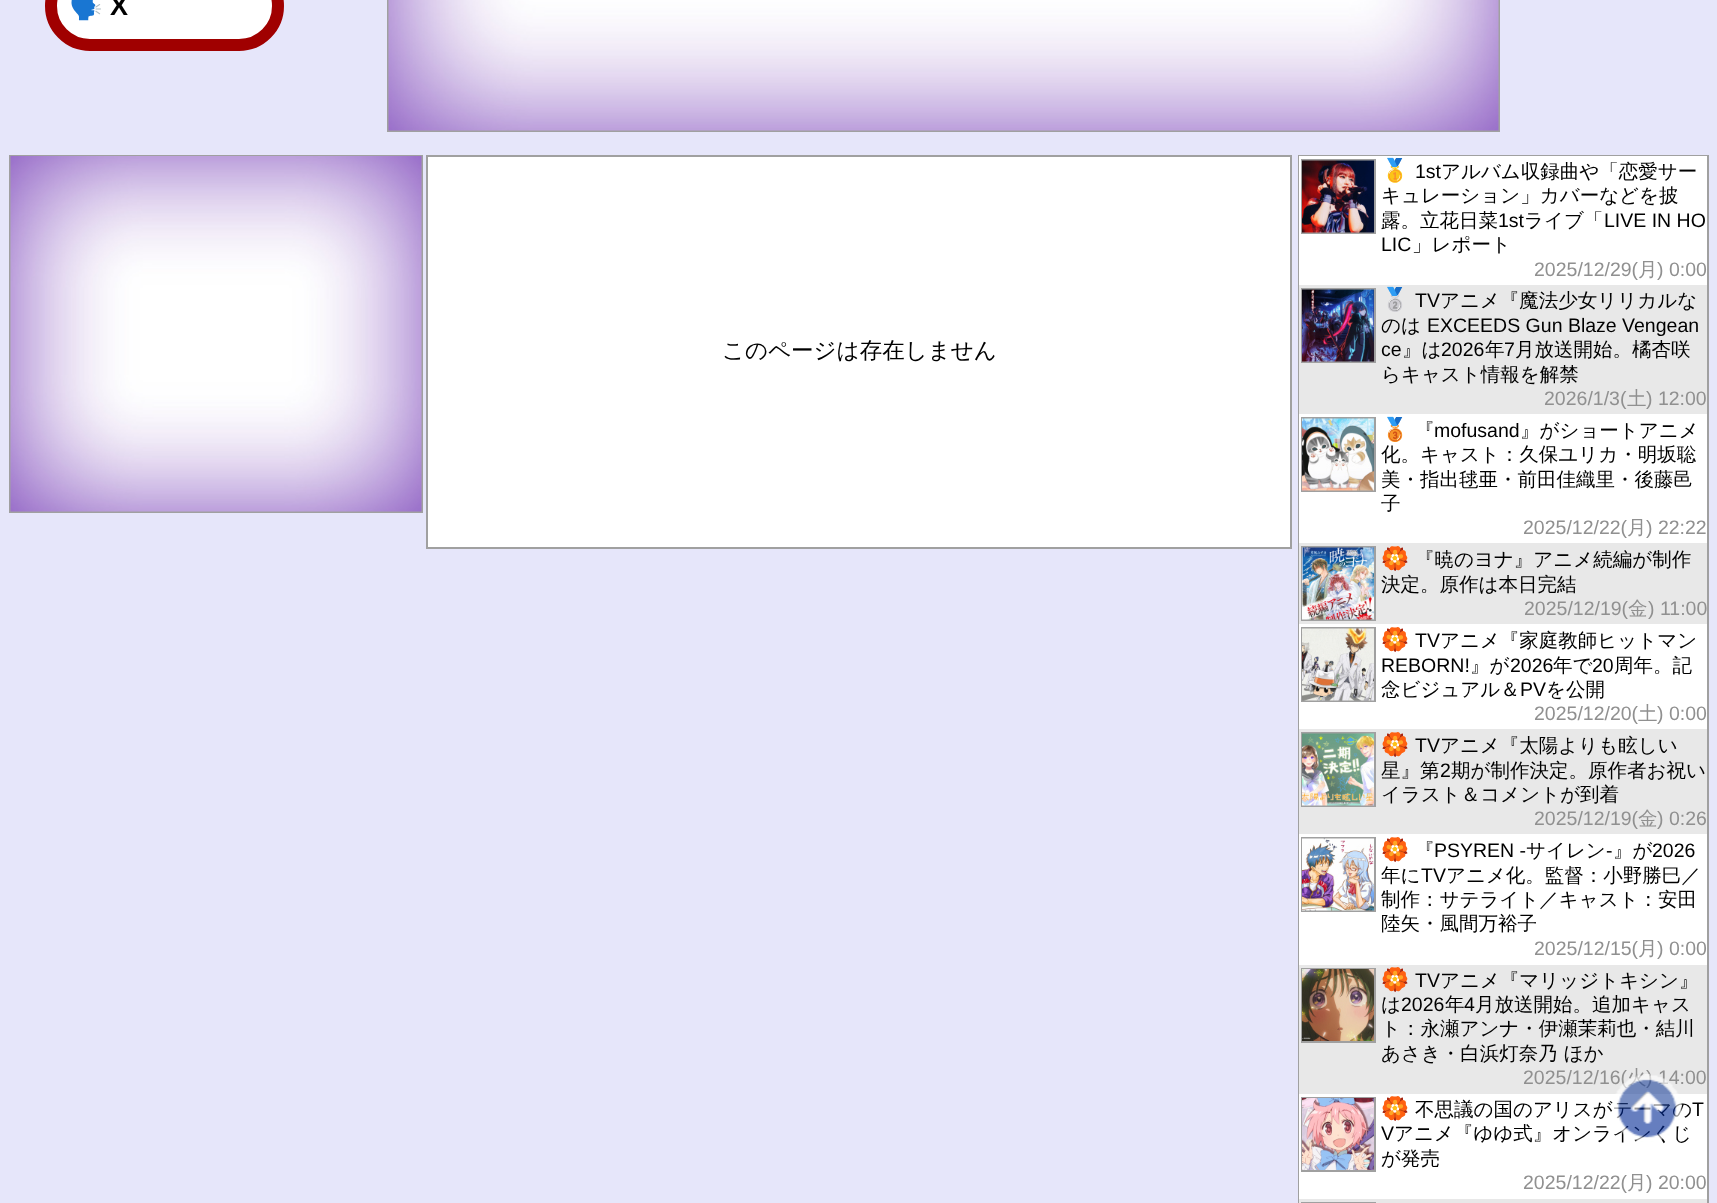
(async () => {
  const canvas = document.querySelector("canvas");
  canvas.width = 1717;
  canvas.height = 1203;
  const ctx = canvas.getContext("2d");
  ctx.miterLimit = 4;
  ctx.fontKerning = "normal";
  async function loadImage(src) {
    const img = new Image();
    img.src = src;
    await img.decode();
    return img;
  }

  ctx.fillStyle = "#e6e6fa";
  ctx.fillRect(0, 0, 1717, 1203);
  ctx.fillStyle = "#ffffff";
  ctx.beginPath();
  ctx.roundRect(51, -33, 227, 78, 39);
  ctx.fill();
  ctx.strokeStyle = "#a00000";
  ctx.lineWidth = 12;
  ctx.stroke();
  ctx.strokeStyle = "#a0a0a0";
  ctx.lineWidth = 2;
  ctx.strokeRect(388, -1, 1111, 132);
  ctx.drawImage(await loadImage("img/1.png"), 388, 0, 1111, 131);
  ctx.strokeRect(10, 156, 412, 356);
  ctx.drawImage(await loadImage("img/2.png"), 10, 156, 412, 356);
  ctx.beginPath();
  ctx.rect(427, 156, 864, 392);
  ctx.fill();
  ctx.stroke();
  ctx.strokeRect(1299, 156, 409, 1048);
  ctx.fillRect(1299, 156, 408, 129);
  ctx.strokeRect(1302, 160, 73, 73);
  ctx.drawImage(await loadImage("img/3.png"), 1302, 160, 72, 73);
  ctx.fillStyle = "#e8e8e8";
  ctx.fillRect(1299, 285, 408, 129);
  ctx.strokeRect(1302, 289, 73, 73);
  ctx.drawImage(await loadImage("img/4.png"), 1302, 289, 72, 73);
  ctx.fillStyle = "#ffffff";
  ctx.fillRect(1299, 414, 408, 129);
  ctx.strokeRect(1302, 418, 73, 73);
  ctx.drawImage(await loadImage("img/5.png"), 1302, 418, 72, 73);
  ctx.fillStyle = "#e8e8e8";
  ctx.fillRect(1299, 543, 408, 81);
  ctx.strokeRect(1302, 547, 73, 73);
  ctx.drawImage(await loadImage("img/6.png"), 1302, 547, 72, 73);
  ctx.fillStyle = "#ffffff";
  ctx.fillRect(1299, 624, 408, 105);
  ctx.strokeRect(1302, 628, 73, 73);
  ctx.drawImage(await loadImage("img/7.png"), 1302, 628, 72, 73);
  ctx.fillStyle = "#e8e8e8";
  ctx.fillRect(1299, 729, 408, 105);
  ctx.strokeRect(1302, 733, 73, 73);
  ctx.drawImage(await loadImage("img/8.png"), 1302, 733, 72, 73);
  ctx.fillStyle = "#ffffff";
  ctx.fillRect(1299, 834, 408, 131);
  ctx.strokeRect(1302, 838, 73, 73);
  ctx.drawImage(await loadImage("img/9.png"), 1302, 838, 72, 73);
  ctx.fillStyle = "#e8e8e8";
  ctx.fillRect(1299, 965, 408, 129);
  ctx.strokeRect(1302, 969, 73, 73);
  ctx.drawImage(await loadImage("img/10.png"), 1302, 969, 72, 72);
  ctx.fillStyle = "#ffffff";
  ctx.fillRect(1299, 1094, 408, 105);
  ctx.strokeRect(1302, 1098, 73, 73);
  ctx.drawImage(await loadImage("img/11.png"), 1302, 1098, 72, 72);
  ctx.fillStyle = "#e8e8e8";
  ctx.fillRect(1299, 1199, 408, 4);
  ctx.strokeRect(1302, 1203, 73, 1);
  ctx.font = "27px Noto Color Emoji";
  ctx.fillStyle = "#000000";
  ctx.fillText("🗣", 69, 15);
  ctx.font = "bold 27px Liberation Sans";
  ctx.fillText("X", 110, 15);
  ctx.font = "500 22.5px WenQuanYi Zen Hei";
  ctx.fillText("このページは存在しません", 722, 358);
  ctx.font = "22.5px Noto Color Emoji";
  ctx.fillText("🥇", 1381, 178);
  ctx.font = "19.5px Liberation Sans";
  ctx.fillText("1st", 1415, 178);
  ctx.font = "500 19.5px WenQuanYi Zen Hei";
  for (const [text, x, y] of [
    ["アルバム収録曲や「恋愛サー", 1441, 178],
    ["キュレーション」カバーなどを披", 1381, 202],
    ["露。立花日菜", 1381, 227],
  ]) {
    ctx.fillText(text, x, y);
  }
  ctx.font = "19.5px Liberation Sans";
  ctx.fillText("1st", 1498, 227);
  ctx.font = "500 19.5px WenQuanYi Zen Hei";
  ctx.fillText("ライブ「", 1524, 227);
  ctx.font = "19.5px Liberation Sans";
  ctx.fillText("LIVE IN HO", 1604, 227);
  ctx.fillText("LIC", 1381, 251);
  ctx.font = "500 19.5px WenQuanYi Zen Hei";
  ctx.fillText("」レポート", 1412, 251);
  ctx.font = "19.5px Liberation Sans";
  ctx.fillStyle = "#909090";
  ctx.fillText("2025/12/29(", 1534, 276);
  ctx.font = "500 19.5px WenQuanYi Zen Hei";
  ctx.fillText("月", 1638, 276);
  ctx.font = "19.5px Liberation Sans";
  ctx.fillText(") 0:00", 1657, 276);
  ctx.font = "22.5px Noto Color Emoji";
  ctx.fillStyle = "#000000";
  ctx.fillText("🥈", 1381, 307);
  ctx.font = "19.5px Liberation Sans";
  ctx.fillText("TV", 1415, 307);
  ctx.font = "500 19.5px WenQuanYi Zen Hei";
  ctx.fillText("アニメ『魔法少女リリカルな", 1440, 307);
  ctx.fillText("のは", 1381, 332);
  ctx.font = "19.5px Liberation Sans";
  ctx.fillText("EXCEEDS Gun Blaze Vengean", 1427, 332);
  ctx.fillText("ce", 1381, 356);
  ctx.font = "500 19.5px WenQuanYi Zen Hei";
  ctx.fillText("』は", 1402, 356);
  ctx.font = "19.5px Liberation Sans";
  ctx.fillText("2026", 1441, 356);
  ctx.font = "500 19.5px WenQuanYi Zen Hei";
  ctx.fillText("年", 1485, 356);
  ctx.font = "19.5px Liberation Sans";
  ctx.fillText("7", 1504, 356);
  ctx.font = "500 19.5px WenQuanYi Zen Hei";
  ctx.fillText("月放送開始。橘杏咲", 1515, 356);
  ctx.fillText("らキャスト情報を解禁", 1381, 381);
  ctx.font = "19.5px Liberation Sans";
  ctx.fillStyle = "#909090";
  ctx.fillText("2026/1/3(", 1544, 405);
  ctx.font = "500 19.5px WenQuanYi Zen Hei";
  ctx.fillText("土", 1627, 405);
  ctx.font = "19.5px Liberation Sans";
  ctx.fillText(") 12:00", 1646, 405);
  ctx.font = "22.5px Noto Color Emoji";
  ctx.fillStyle = "#000000";
  ctx.fillText("🥉", 1381, 437);
  ctx.font = "500 19.5px WenQuanYi Zen Hei";
  ctx.fillText("『", 1415, 437);
  ctx.font = "19.5px Liberation Sans";
  ctx.fillText("mofusand", 1434, 437);
  ctx.font = "500 19.5px WenQuanYi Zen Hei";
  for (const [text, x, y] of [
    ["』がショートアニメ", 1520, 437],
    ["化。キャスト：久保ユリカ・明坂聡", 1381, 461],
    ["美・指出毬亜・前田佳織里・後藤邑", 1381, 486],
    ["子", 1381, 510],
  ]) {
    ctx.fillText(text, x, y);
  }
  ctx.font = "19.5px Liberation Sans";
  ctx.fillStyle = "#909090";
  ctx.fillText("2025/12/22(", 1523, 534);
  ctx.font = "500 19.5px WenQuanYi Zen Hei";
  ctx.fillText("月", 1627, 534);
  ctx.font = "19.5px Liberation Sans";
  ctx.fillText(") 22:22", 1646, 534);
  ctx.font = "22.5px Noto Color Emoji";
  ctx.fillStyle = "#000000";
  ctx.fillText("🏵", 1381, 566);
  ctx.font = "500 19.5px WenQuanYi Zen Hei";
  ctx.fillText("『暁のヨナ』アニメ続編が制作", 1415, 566);
  ctx.fillText("決定。原作は本日完結", 1381, 591);
  ctx.font = "19.5px Liberation Sans";
  ctx.fillStyle = "#909090";
  ctx.fillText("2025/12/19(", 1524, 615);
  ctx.font = "500 19.5px WenQuanYi Zen Hei";
  ctx.fillText("金", 1628, 615);
  ctx.font = "19.5px Liberation Sans";
  ctx.fillText(") 11:00", 1648, 615);
  ctx.font = "22.5px Noto Color Emoji";
  ctx.fillStyle = "#000000";
  ctx.fillText("🏵", 1381, 647);
  ctx.font = "19.5px Liberation Sans";
  ctx.fillText("TV", 1415, 647);
  ctx.font = "500 19.5px WenQuanYi Zen Hei";
  ctx.fillText("アニメ『家庭教師ヒットマン", 1440, 647);
  ctx.font = "19.5px Liberation Sans";
  ctx.fillText("REBORN!", 1381, 672);
  ctx.font = "500 19.5px WenQuanYi Zen Hei";
  ctx.fillText("』が", 1470, 672);
  ctx.font = "19.5px Liberation Sans";
  ctx.fillText("2026", 1510, 672);
  ctx.font = "500 19.5px WenQuanYi Zen Hei";
  ctx.fillText("年で", 1553, 672);
  ctx.font = "19.5px Liberation Sans";
  ctx.fillText("20", 1592, 672);
  ctx.font = "500 19.5px WenQuanYi Zen Hei";
  ctx.fillText("周年。記", 1614, 672);
  ctx.fillText("念ビジュアル＆", 1381, 696);
  ctx.font = "19.5px Liberation Sans";
  ctx.fillText("PV", 1520, 696);
  ctx.font = "500 19.5px WenQuanYi Zen Hei";
  ctx.fillText("を公開", 1546, 696);
  ctx.font = "19.5px Liberation Sans";
  ctx.fillStyle = "#909090";
  ctx.fillText("2025/12/20(", 1534, 720);
  ctx.font = "500 19.5px WenQuanYi Zen Hei";
  ctx.fillText("土", 1638, 720);
  ctx.font = "19.5px Liberation Sans";
  ctx.fillText(") 0:00", 1657, 720);
  ctx.font = "22.5px Noto Color Emoji";
  ctx.fillStyle = "#000000";
  ctx.fillText("🏵", 1381, 752);
  ctx.font = "19.5px Liberation Sans";
  ctx.fillText("TV", 1415, 752);
  ctx.font = "500 19.5px WenQuanYi Zen Hei";
  ctx.fillText("アニメ『太陽よりも眩しい", 1440, 752);
  ctx.fillText("星』第", 1381, 777);
  ctx.font = "19.5px Liberation Sans";
  ctx.fillText("2", 1440, 777);
  ctx.font = "500 19.5px WenQuanYi Zen Hei";
  ctx.fillText("期が制作決定。原作者お祝い", 1451, 777);
  ctx.fillText("イラスト＆コメントが到着", 1381, 801);
  ctx.font = "19.5px Liberation Sans";
  ctx.fillStyle = "#909090";
  ctx.fillText("2025/12/19(", 1534, 825);
  ctx.font = "500 19.5px WenQuanYi Zen Hei";
  ctx.fillText("金", 1638, 825);
  ctx.font = "19.5px Liberation Sans";
  ctx.fillText(") 0:26", 1657, 825);
  ctx.font = "22.5px Noto Color Emoji";
  ctx.fillStyle = "#000000";
  ctx.fillText("🏵", 1381, 857);
  ctx.font = "500 19.5px WenQuanYi Zen Hei";
  ctx.fillText("『", 1415, 857);
  ctx.font = "19.5px Liberation Sans";
  ctx.fillText("PSYREN -", 1434, 857);
  ctx.font = "500 19.5px WenQuanYi Zen Hei";
  ctx.fillText("サイレン", 1526, 857);
  ctx.font = "19.5px Liberation Sans";
  ctx.fillText("-", 1606, 857);
  ctx.font = "500 19.5px WenQuanYi Zen Hei";
  ctx.fillText("』が", 1613, 857);
  ctx.font = "19.5px Liberation Sans";
  ctx.fillText("2026", 1652, 857);
  ctx.font = "500 19.5px WenQuanYi Zen Hei";
  ctx.fillText("年に", 1381, 882);
  ctx.font = "19.5px Liberation Sans";
  ctx.fillText("TV", 1421, 882);
  ctx.font = "500 19.5px WenQuanYi Zen Hei";
  for (const [text, x, y] of [
    ["アニメ化。監督：小野勝巳／", 1446, 882],
    ["制作：サテライト／キャスト：安田", 1381, 906],
    ["陸矢・風間万裕子", 1381, 930],
  ]) {
    ctx.fillText(text, x, y);
  }
  ctx.font = "19.5px Liberation Sans";
  ctx.fillStyle = "#909090";
  ctx.fillText("2025/12/15(", 1534, 955);
  ctx.font = "500 19.5px WenQuanYi Zen Hei";
  ctx.fillText("月", 1638, 955);
  ctx.font = "19.5px Liberation Sans";
  ctx.fillText(") 0:00", 1657, 955);
  ctx.font = "22.5px Noto Color Emoji";
  ctx.fillStyle = "#000000";
  ctx.fillText("🏵", 1381, 987);
  ctx.font = "19.5px Liberation Sans";
  ctx.fillText("TV", 1415, 987);
  ctx.font = "500 19.5px WenQuanYi Zen Hei";
  ctx.fillText("アニメ『マリッジトキシン』", 1440, 987);
  ctx.fillText("は", 1381, 1011);
  ctx.font = "19.5px Liberation Sans";
  ctx.fillText("2026", 1401, 1011);
  ctx.font = "500 19.5px WenQuanYi Zen Hei";
  ctx.fillText("年", 1445, 1011);
  ctx.font = "19.5px Liberation Sans";
  ctx.fillText("4", 1464, 1011);
  ctx.font = "500 19.5px WenQuanYi Zen Hei";
  for (const [text, x, y] of [
    ["月放送開始。追加キャス", 1475, 1011],
    ["ト：永瀬アンナ・伊瀬茉莉也・結川", 1381, 1035],
    ["あさき・白浜灯奈乃 ほか", 1381, 1060],
  ]) {
    ctx.fillText(text, x, y);
  }
  ctx.font = "19.5px Liberation Sans";
  ctx.fillStyle = "#909090";
  ctx.fillText("2025/12/16(", 1523, 1084);
  ctx.font = "500 19.5px WenQuanYi Zen Hei";
  ctx.fillText("火", 1627, 1084);
  ctx.font = "19.5px Liberation Sans";
  ctx.fillText(") 14:00", 1646, 1084);
  ctx.font = "22.5px Noto Color Emoji";
  ctx.fillStyle = "#000000";
  ctx.fillText("🏵", 1381, 1116);
  ctx.font = "500 19.5px WenQuanYi Zen Hei";
  ctx.fillText("不思議の国のアリスがテーマの", 1415, 1116);
  ctx.font = "19.5px Liberation Sans";
  ctx.fillText("T", 1692, 1116);
  ctx.fillText("V", 1381, 1140);
  ctx.font = "500 19.5px WenQuanYi Zen Hei";
  ctx.fillText("アニメ『ゆゆ式』オンラインくじ", 1394, 1140);
  ctx.fillText("が発売", 1381, 1165);
  ctx.font = "19.5px Liberation Sans";
  ctx.fillStyle = "#909090";
  ctx.fillText("2025/12/22(", 1523, 1189);
  ctx.font = "500 19.5px WenQuanYi Zen Hei";
  ctx.fillText("月", 1627, 1189);
  ctx.font = "19.5px Liberation Sans";
  ctx.fillText(") 20:00", 1646, 1189);
  ctx.drawImage(await loadImage("img/12.png"), 1613, 1074, 69, 68);
})();
